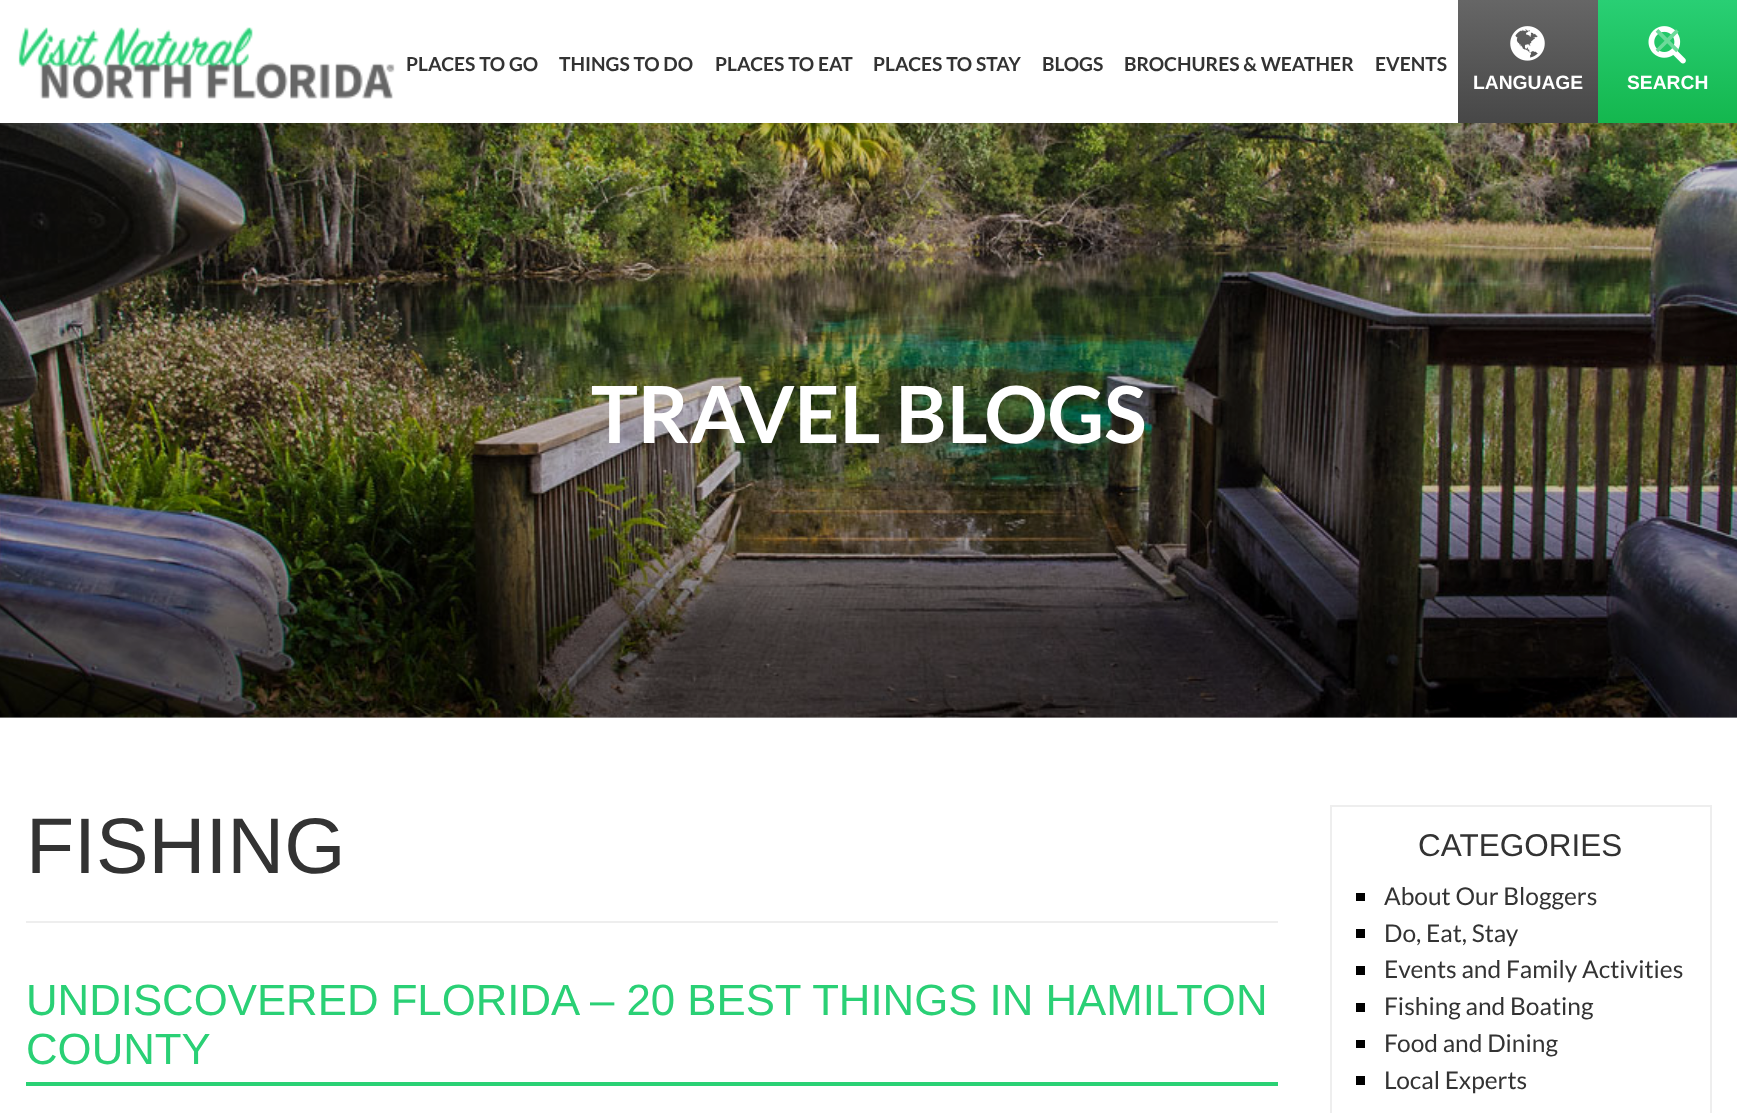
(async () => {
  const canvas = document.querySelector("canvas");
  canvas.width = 1737;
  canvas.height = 1113;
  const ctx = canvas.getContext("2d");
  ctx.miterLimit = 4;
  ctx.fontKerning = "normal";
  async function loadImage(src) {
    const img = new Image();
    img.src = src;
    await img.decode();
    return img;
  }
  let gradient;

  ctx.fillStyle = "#ffffff";
  ctx.fillRect(0, 0, 1737, 1113);
  ctx.drawImage(await loadImage("img/4.png"), 0, 123, 1737, 595);
  ctx.fillStyle = "rgba(0, 0, 0, 0.2)";
  ctx.fillRect(0, 123, 1737, 595);
  ctx.fillStyle = "rgba(0, 0, 0, 0.1)";
  ctx.filter = "blur(9px)";
  ctx.beginPath();
  ctx.rect(0, 5, 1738, 123);
  ctx.fill();
  ctx.filter = "none";
  ctx.fillStyle = "#ffffff";
  ctx.fillRect(0, 0, 1458, 123);
  ctx.drawImage(await loadImage("img/1.png"), 18, 27, 377, 72);
  gradient = ctx.createLinearGradient(1528, 0, 1528, 123);
  gradient.addColorStop(0, "#666666");
  gradient.addColorStop(1, "#474747");
  ctx.fillStyle = gradient;
  ctx.fillRect(1458, 0, 140, 123);
  ctx.drawImage(await loadImage("img/2.png"), 1510, 26, 35, 35);
  gradient = ctx.createLinearGradient(1668, 0, 1668, 123);
  gradient.addColorStop(0, "#29cf74");
  gradient.addColorStop(1, "#14b74e");
  ctx.fillStyle = gradient;
  ctx.fillRect(1598, 0, 139, 123);
  ctx.drawImage(await loadImage("img/3.png"), 1648, 26, 38, 38);
  ctx.fillStyle = "#eeeeee";
  ctx.fillRect(26, 921, 1252, 2);
  ctx.fillStyle = "#2ad174";
  ctx.fillRect(26, 1082, 1252, 4);
  ctx.strokeStyle = "#eeeeee";
  ctx.lineWidth = 2;
  ctx.strokeRect(1331, 806, 380, 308);
  for (const [x, y, w, h, color] of [
    [1356, 893, 9, 8, "#000000"],
    [1356, 929, 9, 9, "#000000"],
    [1356, 966, 9, 9, "#000000"],
    [1356, 1003, 9, 9, "#000000"],
    [1356, 1040, 9, 8, "#000000"],
    [1356, 1076, 9, 9, "#000000"],
  ]) {
    ctx.fillStyle = color;
    ctx.fillRect(x, y, w, h);
  }
  ctx.font = "bold 19.25px Lato";
  ctx.fillStyle = "#333333";
  for (const [text, x, y] of [
    ["PLACES TO GO", 406, 71],
    ["THINGS TO DO", 559, 71],
    ["PLACES TO EAT", 715, 71],
    ["PLACES TO STAY", 873, 71],
    ["BLOGS", 1042, 71],
    ["BROCHURES & WEATHER", 1124, 71],
    ["EVENTS", 1375, 71],
  ]) {
    ctx.fillText(text, x, y);
  }
  ctx.font = "bold 19.25px Liberation Sans";
  ctx.fillStyle = "#ffffff";
  ctx.fillText("LANGUAGE", 1473, 89);
  ctx.font = "52px Liberation Sans";
  ctx.fillStyle = "#6cda9a";
  ctx.fillText("×", 1652, 58);
  ctx.font = "bold 19.25px Liberation Sans";
  ctx.fillStyle = "#ffffff";
  ctx.fillText("SEARCH", 1627, 89);
  ctx.font = "bold 78.75px Lato";
  ctx.fillText("TRAVEL BLOGS", 591, 443);
  ctx.font = "78.75px Liberation Sans";
  ctx.fillStyle = "#333333";
  ctx.fillText("FISHING", 26, 873);
  ctx.font = "43.75px Liberation Sans";
  ctx.fillStyle = "#2ad075";
  ctx.fillText("UNDISCOVERED FLORIDA – 20 BEST THINGS IN HAMILTON", 26, 1015);
  ctx.fillText("COUNTY", 26, 1064);
  ctx.font = "31.5px Liberation Sans";
  ctx.fillStyle = "#333333";
  ctx.fillText("CATEGORIES", 1418, 856);
  ctx.font = "24.5px Lato";
  for (const [text, x, y] of [
    ["About Our Bloggers", 1384, 905],
    ["Do, Eat, Stay", 1384, 942],
    ["Events and Family Activities", 1384, 978],
    ["Fishing and Boating", 1384, 1015],
    ["Food and Dining", 1384, 1052],
    ["Local Experts", 1384, 1089],
  ]) {
    ctx.fillText(text, x, y);
  }
})();
